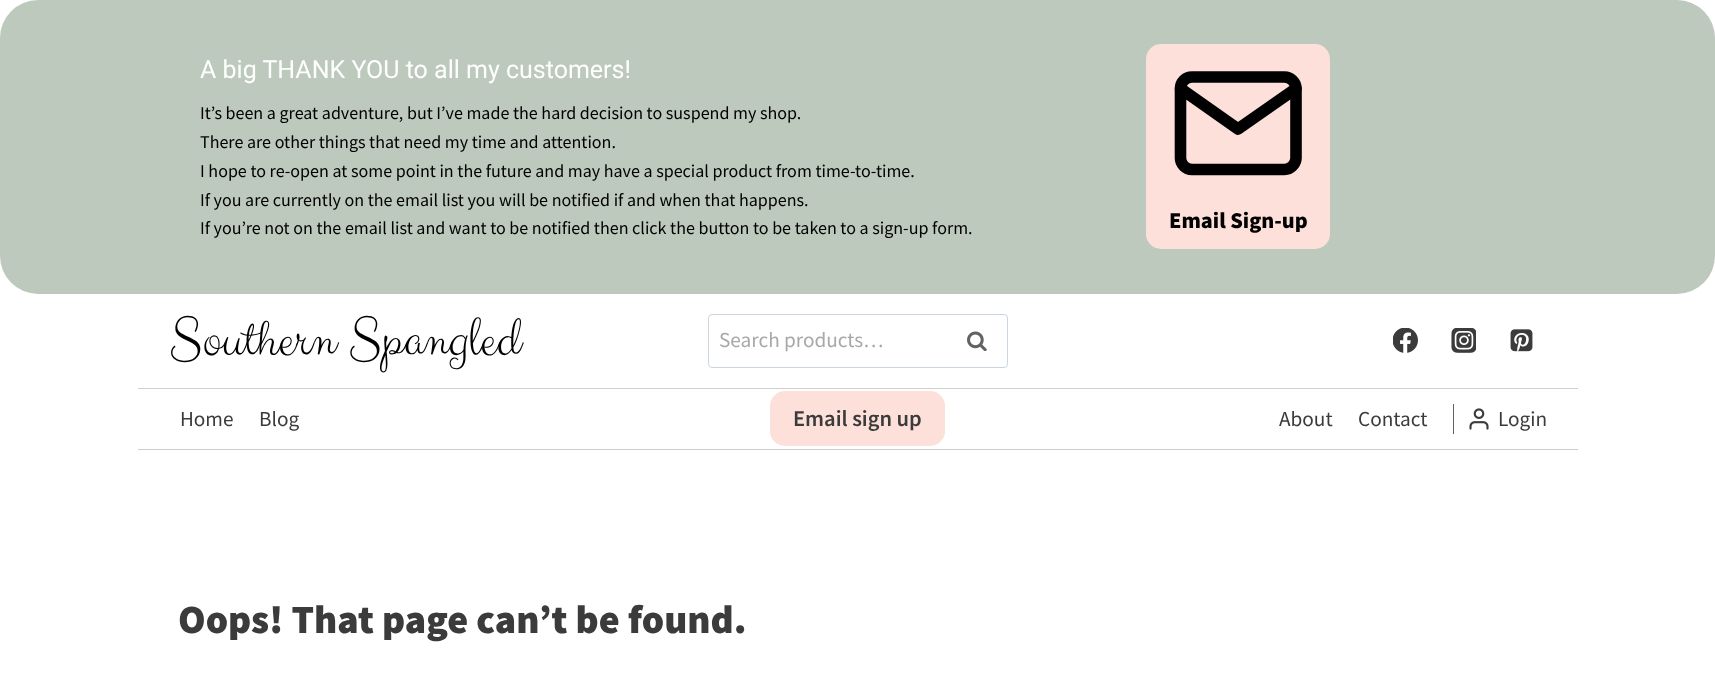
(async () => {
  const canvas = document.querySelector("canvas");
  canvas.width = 1715;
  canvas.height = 694;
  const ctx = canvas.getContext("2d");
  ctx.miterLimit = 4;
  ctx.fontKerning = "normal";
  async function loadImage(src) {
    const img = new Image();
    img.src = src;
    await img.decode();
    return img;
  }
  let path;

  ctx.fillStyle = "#ffffff";
  ctx.fillRect(0, 0, 1715, 694);
  ctx.fillStyle = "#bdc9bd";
  ctx.beginPath();
  ctx.roundRect(0, 0, 1715, 294, 38);
  ctx.fill();
  ctx.fillStyle = "#fce0d9";
  ctx.beginPath();
  ctx.roundRect(1146, 44, 184, 205, 15);
  ctx.fill();
  path = new Path2D("M1192 77H1284.5C1290.5 77 1296 82 1296 88.5V158C1296 164 1290.5 169.5 1284.5 169.5H1192C1185.5 169.5 1180.5 164 1180.5 158V88.5C1180.5 82 1185.5 77 1192 77Z");
  ctx.strokeStyle = "#000000";
  ctx.lineWidth = 11.6;
  ctx.lineCap = "round";
  ctx.lineJoin = "round";
  ctx.stroke(path);
  path = new Path2D("M1296 88.5L1238 129L1180.5 88.5");
  ctx.stroke(path);
  ctx.fillStyle = "#d0d0d0";
  ctx.fillRect(138, 388, 1440, 1);
  ctx.beginPath();
  ctx.roundRect(708.5, 314.5, 299, 53, 3.5);
  ctx.strokeStyle = "#cbd5e0";
  ctx.lineWidth = 1;
  ctx.lineJoin = "miter";
  ctx.stroke();
  ctx.drawImage(await loadImage("img/1.png"), 967, 331, 20, 20);
  ctx.drawImage(await loadImage("img/2.png"), 1393, 328, 25, 25);
  ctx.drawImage(await loadImage("img/3.png"), 1451, 328, 25, 25);
  ctx.drawImage(await loadImage("img/4.png"), 1510, 329, 23, 23);
  ctx.fillStyle = "#cecece";
  ctx.fillRect(138, 449, 1440, 1);
  ctx.fillStyle = "#fce0d9";
  ctx.beginPath();
  ctx.roundRect(770, 391, 175, 55, 15);
  ctx.fill();
  ctx.fillStyle = "#626262";
  ctx.fillRect(1453, 404, 1, 30);
  ctx.drawImage(await loadImage("img/5.png"), 1469, 408, 20, 22);
  ctx.font = "25px Roboto";
  ctx.fillStyle = "#ffffff";
  ctx.fillText("A big THANK YOU to all my customers!", 200, 78);
  ctx.font = "18px Source Sans Pro";
  ctx.fillStyle = "#000000";
  for (const [text, x, y] of [
    ["It’s been a great adventure, but I’ve made the hard decision to suspend my shop.", 200, 119],
    ["There are other things that need my time and attention.", 200, 148],
    ["I hope to re-open at some point in the future and may have a special product from time-to-time.", 200, 177],
    ["If you are currently on the email list you will be notified if and when that happens.", 200, 206],
    ["If you’re not on the email list and want to be notified then click the button to be taken to a sign-up form.", 200, 234],
  ]) {
    ctx.fillText(text, x, y);
  }
  ctx.font = "200 22.5px 'Source Sans 3'";
  ctx.fillText("Email Sign-up", 1169, 228);
  ctx.font = "57.5px Clicker Script";
  ctx.fillText("Southern Spangled", 169, 356);
  ctx.font = "21.25px Source Sans Pro";
  ctx.fillStyle = "#a8a8a8";
  ctx.fillText("Search products…", 719, 347);
  ctx.fillStyle = "#3b3b3b";
  ctx.fillText("Home", 180, 426);
  ctx.fillText("Blog", 259, 426);
  ctx.font = "600 22.5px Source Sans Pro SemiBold";
  ctx.fillText("Email sign up", 793, 426);
  ctx.font = "21.25px Source Sans Pro";
  for (const [text, x, y] of [
    ["About", 1279, 426],
    ["Contact", 1358, 426],
    ["Login", 1498, 426],
  ]) {
    ctx.fillText(text, x, y);
  }
  ctx.font = "900 40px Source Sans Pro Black";
  ctx.fillText("Oops! That page can’t be found.", 178, 633);
})();
